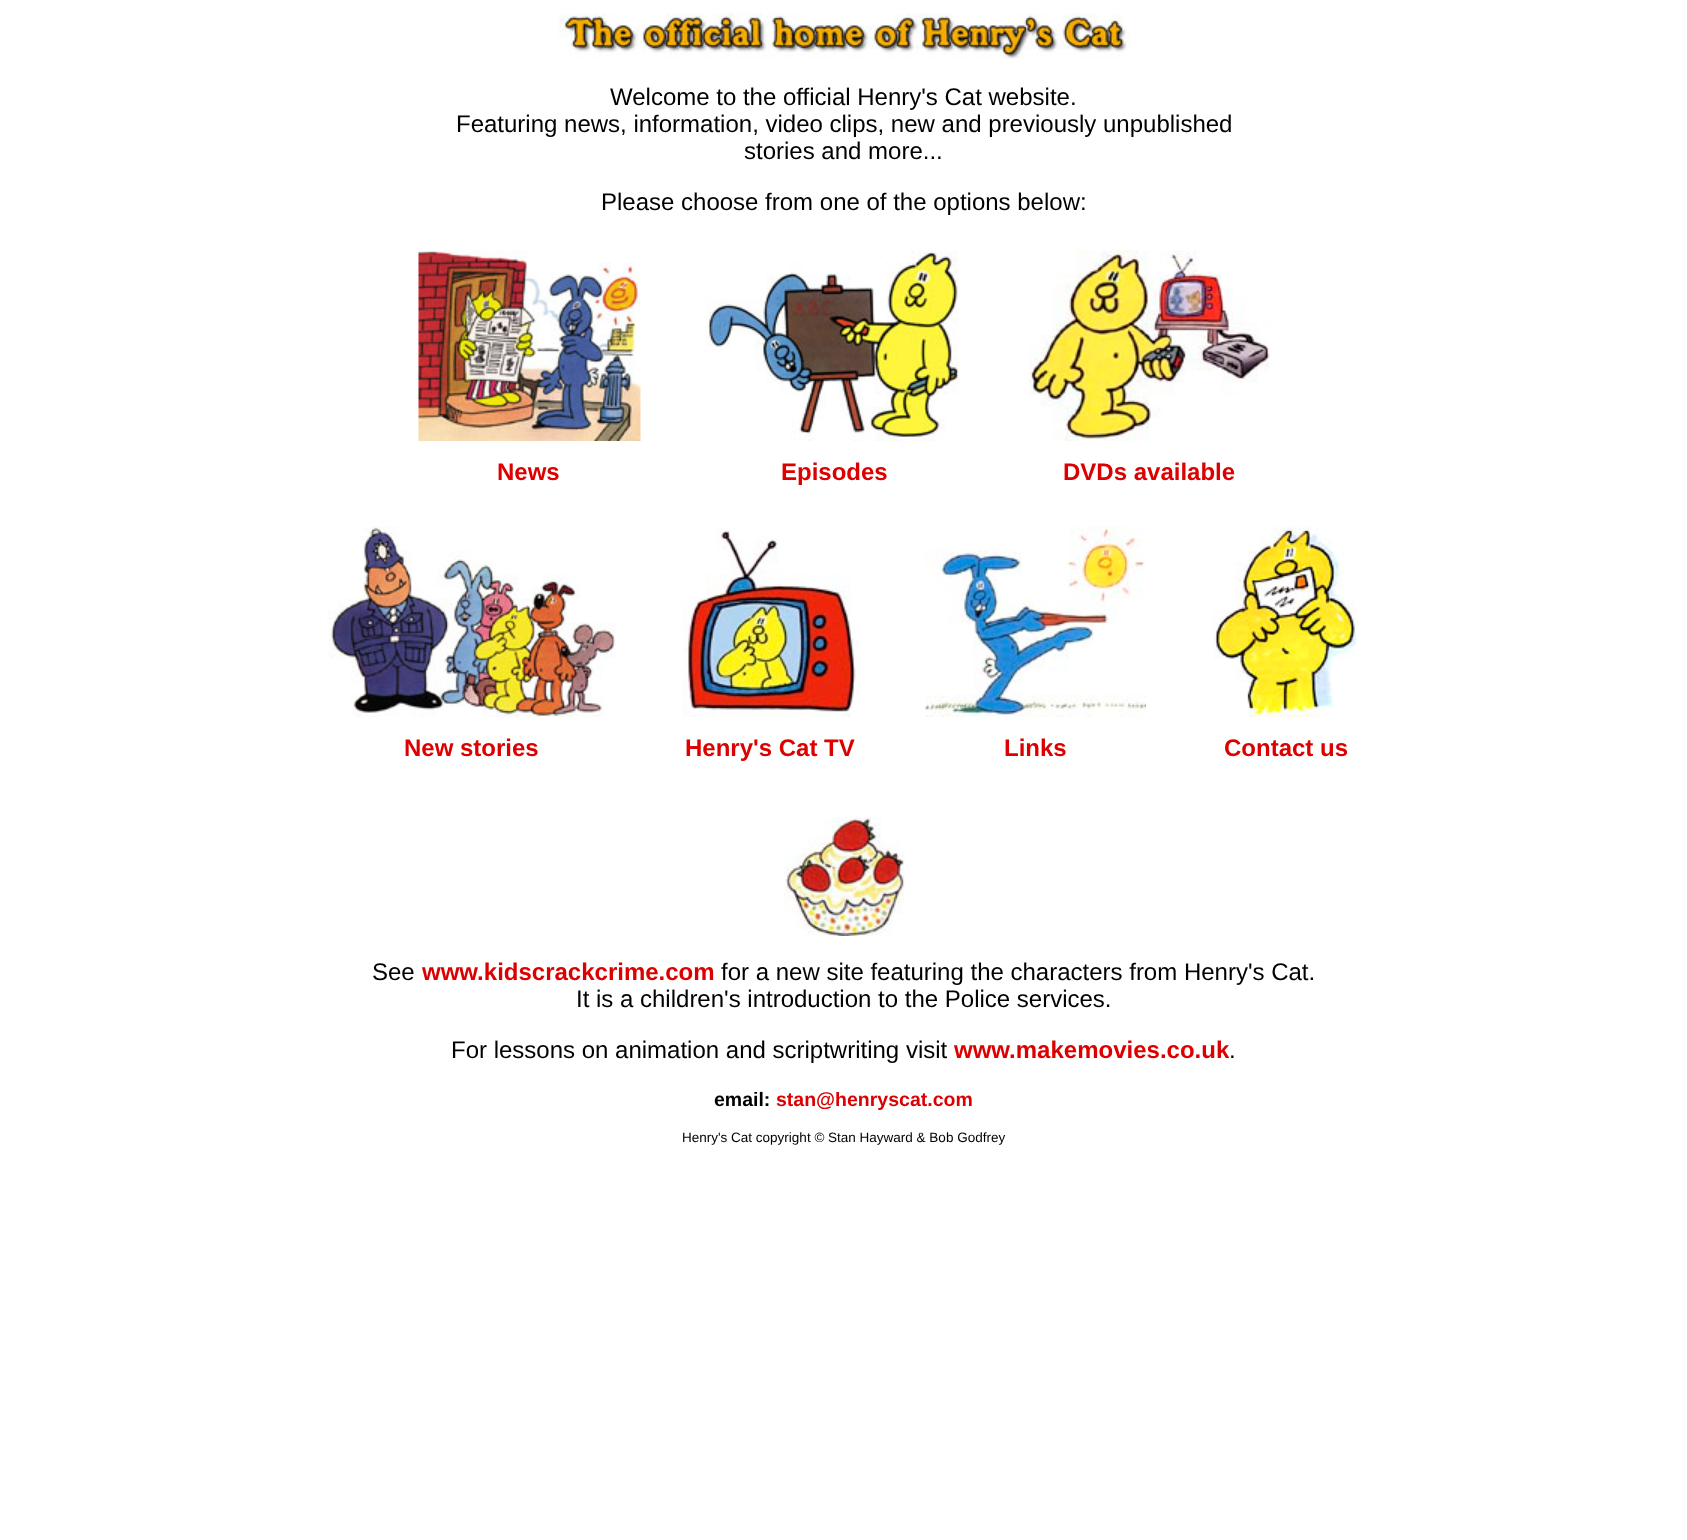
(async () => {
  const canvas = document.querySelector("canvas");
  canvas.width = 1687;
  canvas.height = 1540;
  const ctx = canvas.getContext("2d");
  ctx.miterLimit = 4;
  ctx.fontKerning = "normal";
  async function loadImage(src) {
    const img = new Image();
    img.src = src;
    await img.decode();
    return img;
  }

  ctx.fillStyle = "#ffffff";
  ctx.fillRect(0, 0, 1687, 1540);
  ctx.drawImage(await loadImage("img/1.png"), 558, 13, 573, 46);
  ctx.drawImage(await loadImage("img/2.png"), 418, 250, 223, 191);
  ctx.drawImage(await loadImage("img/3.png"), 706, 250, 253, 191);
  ctx.drawImage(await loadImage("img/4.png"), 1029, 250, 241, 191);
  ctx.drawImage(await loadImage("img/5.png"), 327, 526, 289, 191);
  ctx.drawImage(await loadImage("img/6.png"), 682, 527, 178, 190);
  ctx.drawImage(await loadImage("img/7.png"), 925, 526, 221, 191);
  ctx.drawImage(await loadImage("img/8.png"), 1212, 526, 146, 191);
  ctx.drawImage(await loadImage("img/9.png"), 784, 817, 121, 119);
  ctx.font = "24px Liberation Sans";
  ctx.fillStyle = "#000000";
  for (const [text, x, y] of [
    ["Welcome to the official Henry's Cat website.", 610, 105],
    ["Featuring news, information, video clips, new and previously unpublished", 456, 132],
    ["stories and more...", 744, 159],
    ["Please choose from one of the options below:", 601, 210],
  ]) {
    ctx.fillText(text, x, y);
  }
  ctx.font = "bold 24px Liberation Sans";
  ctx.fillStyle = "#dd0000";
  for (const [text, x, y] of [
    ["News", 497, 480],
    ["Episodes", 781, 480],
    ["DVDs available", 1063, 480],
    ["New stories", 404, 756],
    ["Henry's Cat TV", 685, 756],
    ["Links", 1004, 756],
    ["Contact us", 1224, 756],
  ]) {
    ctx.fillText(text, x, y);
  }
  ctx.font = "24px Liberation Sans";
  ctx.fillStyle = "#000000";
  ctx.fillText("See", 372, 980);
  ctx.font = "bold 24px Liberation Sans";
  ctx.fillStyle = "#dd0000";
  ctx.fillText("www.kidscrackcrime.com", 422, 980);
  ctx.font = "24px Liberation Sans";
  ctx.fillStyle = "#000000";
  for (const [text, x, y] of [
    ["for a new site featuring the characters from Henry's Cat.", 721, 980],
    ["It is a children's introduction to the Police services.", 576, 1007],
    ["For lessons on animation and scriptwriting visit", 451, 1058],
  ]) {
    ctx.fillText(text, x, y);
  }
  ctx.font = "bold 24px Liberation Sans";
  ctx.fillStyle = "#dd0000";
  ctx.fillText("www.makemovies.co.uk", 954, 1058);
  ctx.font = "24px Liberation Sans";
  ctx.fillStyle = "#000000";
  ctx.fillText(".", 1229, 1058);
  ctx.font = "bold 19.5px Liberation Sans";
  ctx.fillText("email:", 714, 1106);
  ctx.fillStyle = "#dd0000";
  ctx.fillText("stan@henryscat.com", 776, 1106);
  ctx.font = "13.5px Liberation Sans";
  ctx.fillStyle = "#000000";
  ctx.fillText("Henry's Cat copyright © Stan Hayward & Bob Godfrey", 682, 1142);
})();
